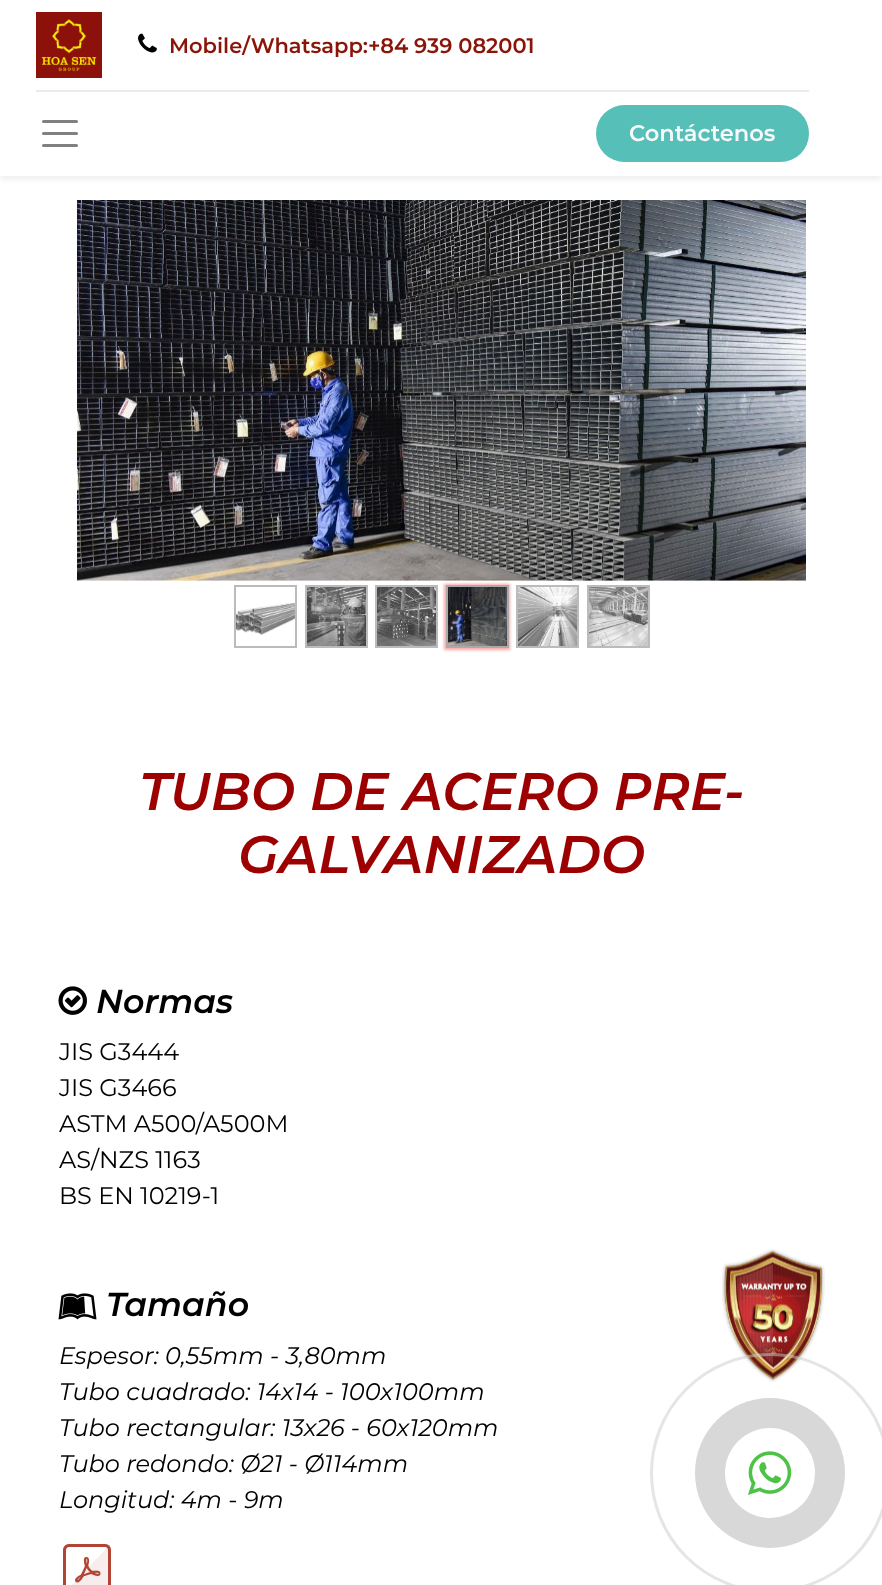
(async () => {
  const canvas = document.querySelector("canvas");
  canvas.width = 882;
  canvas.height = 1585;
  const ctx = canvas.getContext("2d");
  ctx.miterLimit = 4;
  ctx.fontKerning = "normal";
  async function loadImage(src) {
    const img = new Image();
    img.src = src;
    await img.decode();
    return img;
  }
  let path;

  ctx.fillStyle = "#ffffff";
  ctx.fillRect(0, 0, 882, 1585);
  ctx.fillStyle = "rgba(0, 0, 0, 0.07)";
  ctx.filter = "blur(3px)";
  ctx.beginPath();
  ctx.rect(0, 3, 882, 176);
  ctx.fill();
  ctx.filter = "none";
  ctx.fillStyle = "#ffffff";
  ctx.fillRect(0, 0, 882, 176);
  ctx.drawImage(await loadImage("img/1.png"), 36, 12, 66, 66);
  ctx.drawImage(await loadImage("img/2.png"), 138, 33, 19, 20);
  ctx.fillStyle = "#e9ecef";
  ctx.fillRect(36, 90, 773, 2);
  path = new Path2D("M43.5 121.5H76.5M43.5 133.5H76.5M43.5 145.5H76.5");
  ctx.strokeStyle = "#808080";
  ctx.lineWidth = 3;
  ctx.lineCap = "round";
  ctx.stroke(path);
  ctx.fillStyle = "#56bfb7";
  ctx.beginPath();
  ctx.roundRect(596, 105, 213, 57, 28.5);
  ctx.fill();
  ctx.drawImage(await loadImage("img/3.png"), 77, 200, 729, 381);
  ctx.drawImage(await loadImage("img/4.png"), 236, 602, 59, 34);
  ctx.strokeStyle = "#bbbbbb";
  ctx.lineWidth = 2;
  ctx.strokeRect(235, 586, 61, 61);
  ctx.drawImage(await loadImage("img/5.png"), 307, 587, 59, 59);
  ctx.strokeRect(306, 586, 61, 61);
  ctx.drawImage(await loadImage("img/6.png"), 377, 587, 59, 59);
  ctx.strokeRect(376, 586, 61, 61);
  ctx.fillStyle = "#ffa2a2";
  ctx.filter = "blur(1.5px)";
  ctx.beginPath();
  ctx.rect(444, 584, 66, 66);
  ctx.fill();
  ctx.filter = "none";
  ctx.drawImage(await loadImage("img/7.png"), 448, 587, 59, 59);
  ctx.strokeStyle = "#aaaaaa";
  ctx.strokeRect(447, 586, 61, 61);
  ctx.drawImage(await loadImage("img/8.png"), 518, 587, 59, 59);
  ctx.strokeStyle = "#bbbbbb";
  ctx.strokeRect(517, 586, 61, 61);
  ctx.drawImage(await loadImage("img/9.png"), 589, 587, 59, 59);
  ctx.strokeRect(588, 586, 61, 61);
  ctx.drawImage(await loadImage("img/10.png"), 58, 986, 29, 29);
  ctx.drawImage(await loadImage("img/11.png"), 58, 1293, 39, 27);
  ctx.drawImage(await loadImage("img/12.png"), 63, 1544, 48, 41);
  ctx.drawImage(await loadImage("img/13.png"), 722, 1249, 103, 133);
  ctx.beginPath();
  ctx.arc(770, 1473, 118.5, 0, Math.PI * 2);
  ctx.strokeStyle = "rgba(204, 204, 204, 0.5)";
  ctx.lineWidth = 3;
  ctx.stroke();
  ctx.fillStyle = "#d8d8d8";
  ctx.beginPath();
  ctx.arc(770, 1473, 75, 0, Math.PI * 2);
  ctx.fill();
  ctx.fillStyle = "#ffffff";
  ctx.beginPath();
  ctx.arc(770, 1473, 45, 0, Math.PI * 2);
  ctx.fill();
  ctx.drawImage(await loadImage("img/14.png"), 747, 1451, 45, 44);
  ctx.font = "600 21px Montserrat";
  ctx.fillStyle = "#8b1409";
  ctx.fillText("Mobile/Whatsapp:+84 939 082001", 169, 53);
  ctx.font = "600 22.5px Montserrat";
  ctx.fillStyle = "#f8f9fa";
  ctx.fillText("Contáctenos", 629, 141);
  ctx.font = "italic 600 52.75px Montserrat";
  ctx.fillStyle = "#9c0000";
  ctx.fillText("TUBO DE ACERO PRE-", 139, 810);
  ctx.fillText("GALVANIZADO", 238, 873);
  ctx.font = "italic 600 33.25px Montserrat";
  ctx.fillStyle = "#000000";
  ctx.fillText("Normas", 96, 1013);
  ctx.font = "24px Montserrat";
  for (const [text, x, y] of [
    ["JIS G3444", 59, 1060],
    ["JIS G3466", 59, 1096],
    ["ASTM A500/A500M", 59, 1132],
    ["AS/NZS 1163", 59, 1168],
    ["BS EN 10219-1", 59, 1204],
  ]) {
    ctx.fillText(text, x, y);
  }
  ctx.font = "italic 600 33.25px Montserrat";
  ctx.fillText("Tamaño", 106, 1316);
  ctx.font = "italic 24px Montserrat";
  for (const [text, x, y] of [
    ["Espesor: 0,55mm - 3,80mm", 59, 1364],
    ["Tubo cuadrado: 14x14 - 100x100mm", 59, 1400],
    ["Tubo rectangular: 13x26 - 60x120mm", 59, 1436],
    ["Tubo redondo: Ø21 - Ø114mm", 59, 1472],
    ["Longitud: 4m - 9m", 59, 1508],
  ]) {
    ctx.fillText(text, x, y);
  }
})();
